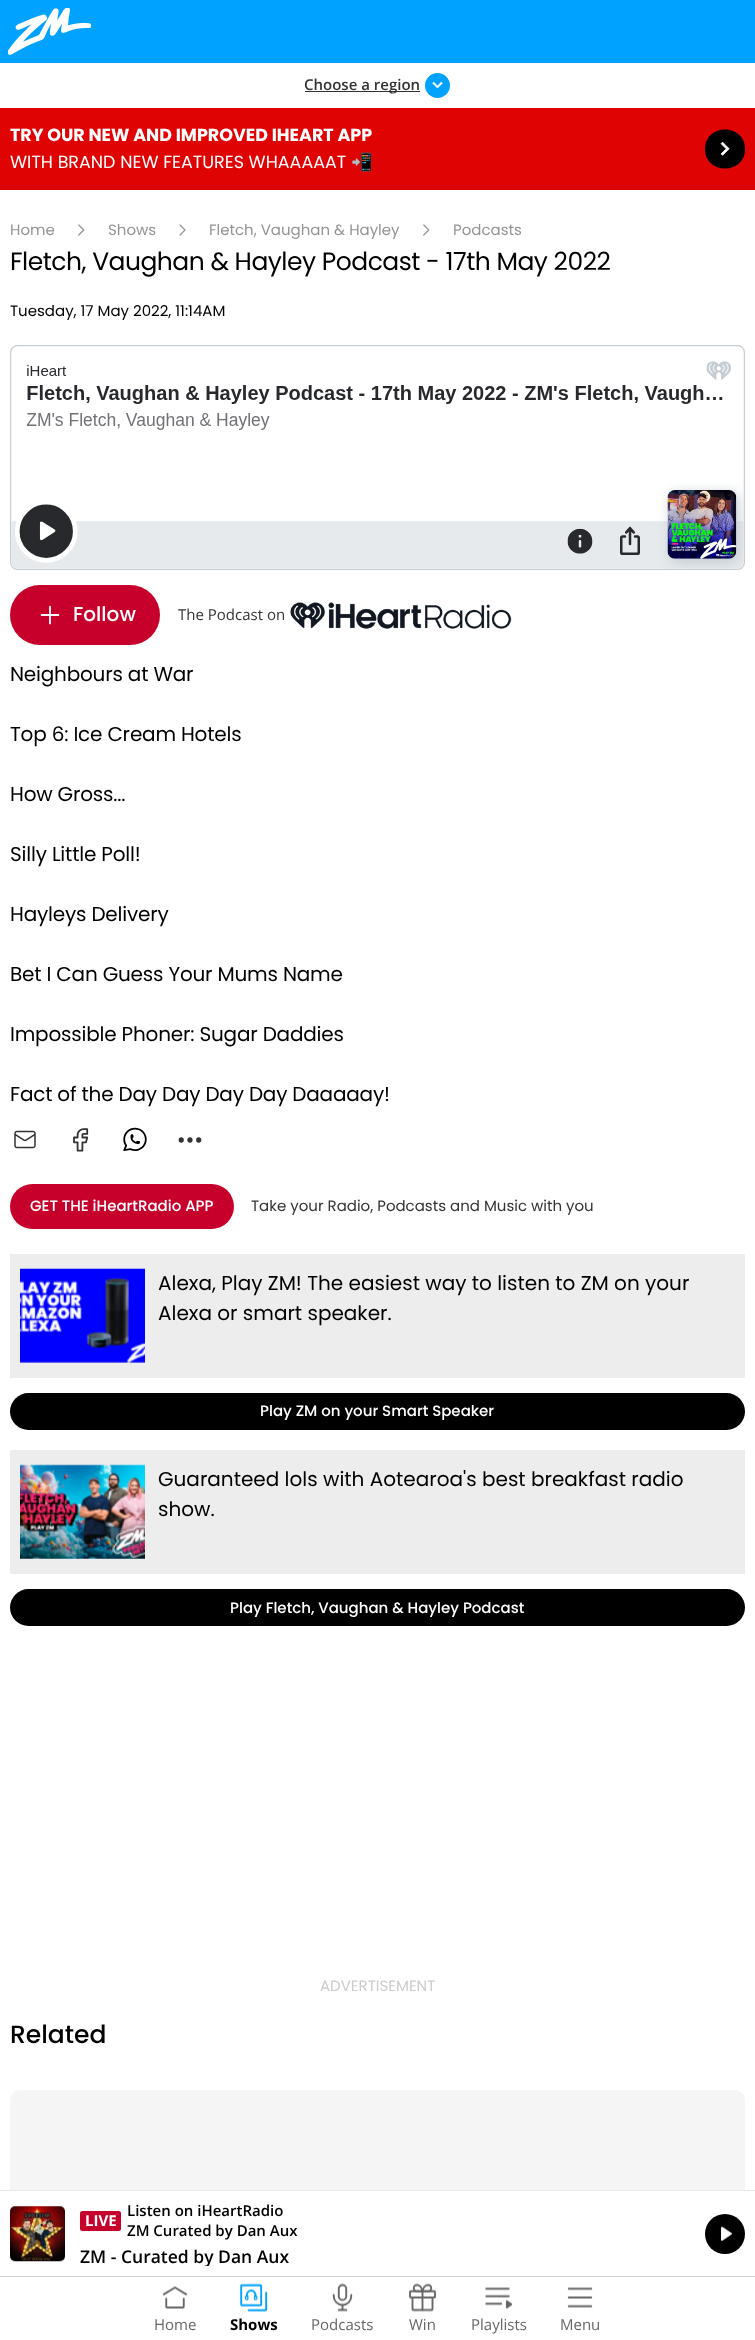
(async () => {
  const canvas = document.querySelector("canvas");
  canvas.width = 755;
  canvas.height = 2340;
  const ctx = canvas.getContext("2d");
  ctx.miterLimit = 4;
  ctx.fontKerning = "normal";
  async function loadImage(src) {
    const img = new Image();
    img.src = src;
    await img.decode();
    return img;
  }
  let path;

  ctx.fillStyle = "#ffffff";
  ctx.fillRect(0, 0, 755, 2340);
  ctx.fillStyle = "#00a2ff";
  ctx.fillRect(0, 0, 755, 63);
  ctx.drawImage(await loadImage("img/1.png"), 8, 8, 83, 47);
  ctx.fillStyle = "#333333";
  ctx.fillRect(305, 91, 115, 1);
  ctx.fillStyle = "#00a2ff";
  ctx.beginPath();
  ctx.arc(437.5, 85.5, 12.5, 0, Math.PI * 2);
  ctx.fill();
  ctx.drawImage(await loadImage("img/2.png"), 431, 82, 13, 7);
  ctx.fillStyle = "#e00303";
  ctx.fillRect(0, 108, 755, 82);
  ctx.fillStyle = "#000000";
  path = new Path2D("M705 149C705 123 745 123 745 149C745 175 705 175 705 149Z");
  ctx.fill(path);
  ctx.drawImage(await loadImage("img/3.png"), 720, 142, 10, 14);
  ctx.drawImage(await loadImage("img/4.png"), 78, 224, 7, 12);
  ctx.drawImage(await loadImage("img/5.png"), 179, 224, 7, 12);
  ctx.drawImage(await loadImage("img/4.png"), 423, 224, 7, 12);
  ctx.drawImage(await loadImage("img/6.png"), 10, 345, 735, 225);
  ctx.fillStyle = "#c7002b";
  ctx.beginPath();
  ctx.roundRect(10, 585, 150, 60, 30);
  ctx.fill();
  ctx.drawImage(await loadImage("img/7.png"), 40, 605, 20, 20);
  ctx.drawImage(await loadImage("img/8.png"), 290, 602, 222, 27);
  ctx.drawImage(await loadImage("img/9.png"), 14, 1130, 22, 19);
  ctx.drawImage(await loadImage("img/10.png"), 73, 1128, 16, 24);
  ctx.drawImage(await loadImage("img/11.png"), 123, 1127, 24, 24);
  ctx.drawImage(await loadImage("img/12.png"), 178, 1137, 24, 6);
  ctx.beginPath();
  ctx.roundRect(10, 1184, 224, 45, 22.5);
  ctx.fill();
  ctx.fillStyle = "#ededed";
  ctx.fillRect(10, 1254, 735, 124);
  ctx.fillStyle = "#e6e6e6";
  ctx.fillRect(20, 1361, 125, 2);
  ctx.drawImage(await loadImage("img/13.png"), 20, 1268, 125, 95);
  ctx.fillStyle = "#000000";
  ctx.beginPath();
  ctx.roundRect(10, 1393, 735, 37, 18.5);
  ctx.fill();
  ctx.fillStyle = "#ededed";
  ctx.fillRect(10, 1450, 735, 124);
  ctx.drawImage(await loadImage("img/14.png"), 20, 1464, 125, 95);
  ctx.fillStyle = "#000000";
  ctx.beginPath();
  ctx.roundRect(10, 1589, 735, 37, 18.5);
  ctx.fill();
  ctx.fillStyle = "#f5f5f5";
  ctx.beginPath();
  ctx.roundRect(10, 2090, 735, 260, 10);
  ctx.fill();
  ctx.fillStyle = "#ffffff";
  ctx.fillRect(10, 2191, 735, 149);
  ctx.fillStyle = "#e5e7eb";
  ctx.fillRect(0, 2190, 755, 1);
  ctx.drawImage(await loadImage("img/15.png"), 10, 2206, 55, 56);
  ctx.fillStyle = "#c7002b";
  ctx.beginPath();
  ctx.roundRect(80, 2211, 41, 20, 2.5);
  ctx.fill();
  ctx.fillStyle = "#000000";
  ctx.beginPath();
  ctx.arc(725, 2234, 20, 0, Math.PI * 2);
  ctx.fill();
  ctx.drawImage(await loadImage("img/16.png"), 721, 2226, 11, 15);
  ctx.fillStyle = "#d1d5db";
  ctx.fillRect(0, 2276, 755, 1);
  ctx.drawImage(await loadImage("img/17.png"), 162, 2286, 26, 23);
  ctx.drawImage(await loadImage("img/18.png"), 240, 2283, 28, 29);
  ctx.drawImage(await loadImage("img/19.png"), 332, 2283, 21, 29);
  ctx.drawImage(await loadImage("img/20.png"), 409, 2283, 27, 29);
  ctx.drawImage(await loadImage("img/21.png"), 485, 2287, 28, 22);
  ctx.drawImage(await loadImage("img/22.png"), 567, 2287, 26, 21);
  ctx.font = "600 15px Open Sans";
  ctx.fillStyle = "#333333";
  ctx.fillText("Choose a region", 304, 90);
  ctx.font = "bold 17.5px Poppins";
  ctx.fillStyle = "#ffffff";
  ctx.fillText("TRY OUR NEW AND IMPROVED IHEART APP", 10, 141);
  ctx.font = "17.5px Poppins";
  ctx.fillText("WITH BRAND NEW FEATURES WHAAAAAT", 10, 168);
  ctx.font = "17.5px Noto Color Emoji";
  ctx.fillText("📲", 351, 168);
  ctx.font = "15px Poppins";
  ctx.fillStyle = "#949494";
  for (const [text, x, y] of [
    ["Home", 10, 235],
    ["Shows", 108, 235],
    ["Fletch, Vaughan & Hayley", 209, 235],
    ["Podcasts", 453, 235],
  ]) {
    ctx.fillText(text, x, y);
  }
  ctx.letterSpacing = "-0.5px";
  ctx.font = "25px Poppins";
  ctx.fillStyle = "#000000";
  ctx.fillText("Fletch, Vaughan & Hayley Podcast - 17th May 2022", 10, 270);
  ctx.letterSpacing = "0px";
  ctx.font = "15px Poppins";
  ctx.fillText("Tuesday, 17 May 2022, 11:14AM", 10, 316);
  ctx.font = "500 20px Poppins";
  ctx.fillStyle = "#ffffff";
  ctx.fillText("Follow", 73, 621);
  ctx.font = "15px Open Sans";
  ctx.fillStyle = "#333333";
  ctx.fillText("The Podcast on", 178, 620);
  ctx.letterSpacing = "-0.2px";
  ctx.font = "20px Poppins";
  ctx.fillStyle = "#000000";
  for (const [text, x, y] of [
    ["Neighbours at War", 10, 681],
    ["Top 6: Ice Cream Hotels", 10, 741],
    ["How Gross...", 10, 801],
    ["Silly Little Poll!", 10, 861],
    ["Hayleys Delivery", 10, 921],
    ["Bet I Can Guess Your Mums Name", 10, 981],
    ["Impossible Phoner: Sugar Daddies", 10, 1041],
    ["Fact of the Day Day Day Day Daaaaay!", 10, 1101],
  ]) {
    ctx.fillText(text, x, y);
  }
  ctx.letterSpacing = "0px";
  ctx.font = "500 15px Poppins";
  ctx.fillStyle = "#ffffff";
  ctx.fillText("GET THE iHeartRadio APP", 30, 1211);
  ctx.font = "15px Poppins";
  ctx.fillStyle = "#333333";
  ctx.fillText("Take your Radio, Podcasts and Music with you", 251, 1211);
  ctx.font = "20px Poppins";
  ctx.fillStyle = "#000000";
  ctx.fillText("Alexa, Play ZM! The easiest way to listen to ZM on your", 158, 1290);
  ctx.fillText("Alexa or smart speaker.", 158, 1320);
  ctx.font = "500 15px Poppins";
  ctx.fillStyle = "#ffffff";
  ctx.fillText("Play ZM on your Smart Speaker", 260, 1416);
  ctx.font = "20px Poppins";
  ctx.fillStyle = "#000000";
  ctx.fillText("Guaranteed lols with Aotearoa's best breakfast radio", 158, 1486);
  ctx.fillText("show.", 158, 1516);
  ctx.font = "500 15px Poppins";
  ctx.fillStyle = "#ffffff";
  ctx.fillText("Play Fletch, Vaughan & Hayley Podcast", 230, 1613);
  ctx.font = "15px Poppins";
  ctx.fillStyle = "#cccccc";
  ctx.fillText("ADVERTISEMENT", 320, 1991);
  ctx.font = "500 25px Poppins";
  ctx.fillStyle = "#000000";
  ctx.fillText("Related", 10, 2043);
  ctx.font = "bold 15px Open Sans";
  ctx.fillStyle = "#ffffff";
  ctx.fillText("LIVE", 85, 2226);
  ctx.font = "600 15px Open Sans";
  ctx.fillStyle = "#000000";
  ctx.fillText("Listen on iHeartRadio", 127, 2216);
  ctx.fillText("ZM Curated by Dan Aux", 127, 2236);
  ctx.save();
  ctx.beginPath();
  ctx.rect(80, 2246, 615, 20);
  ctx.clip();
  ctx.font = "600 17.5px Open Sans";
  ctx.fillText("ZM - Curated by Dan Aux", 80, 2263);
  ctx.restore();
  ctx.font = "15px Open Sans";
  ctx.fillStyle = "#666666";
  ctx.fillText("Home", 154, 2330);
  ctx.font = "bold 15px Open Sans";
  ctx.fillStyle = "#000000";
  ctx.fillText("Shows", 230, 2330);
  ctx.font = "15px Open Sans";
  ctx.fillStyle = "#666666";
  for (const [text, x, y] of [
    ["Podcasts", 311, 2330],
    ["Win", 409, 2330],
    ["Playlists", 471, 2330],
    ["Menu", 560, 2330],
  ]) {
    ctx.fillText(text, x, y);
  }
})();
